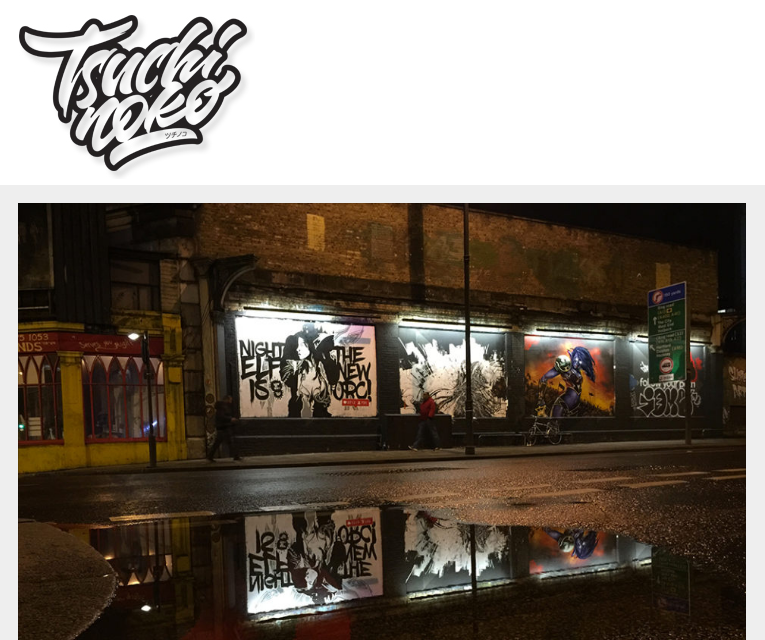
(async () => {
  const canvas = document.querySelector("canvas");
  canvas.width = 765;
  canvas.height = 640;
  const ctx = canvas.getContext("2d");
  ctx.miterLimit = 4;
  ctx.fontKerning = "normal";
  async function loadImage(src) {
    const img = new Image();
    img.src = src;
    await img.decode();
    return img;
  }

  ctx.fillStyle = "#eeeeee";
  ctx.fillRect(0, 0, 765, 640);
  ctx.fillStyle = "#ffffff";
  ctx.fillRect(0, 0, 765, 185);
  ctx.drawImage(await loadImage("img/1.png"), 19, 15, 236, 164);
  ctx.drawImage(await loadImage("img/2.png"), 18, 203, 728, 437);
  ctx.strokeStyle = "rgba(0, 0, 0, 0.1)";
  ctx.strokeRect(18.5, 203.5, 727, 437);
})();
